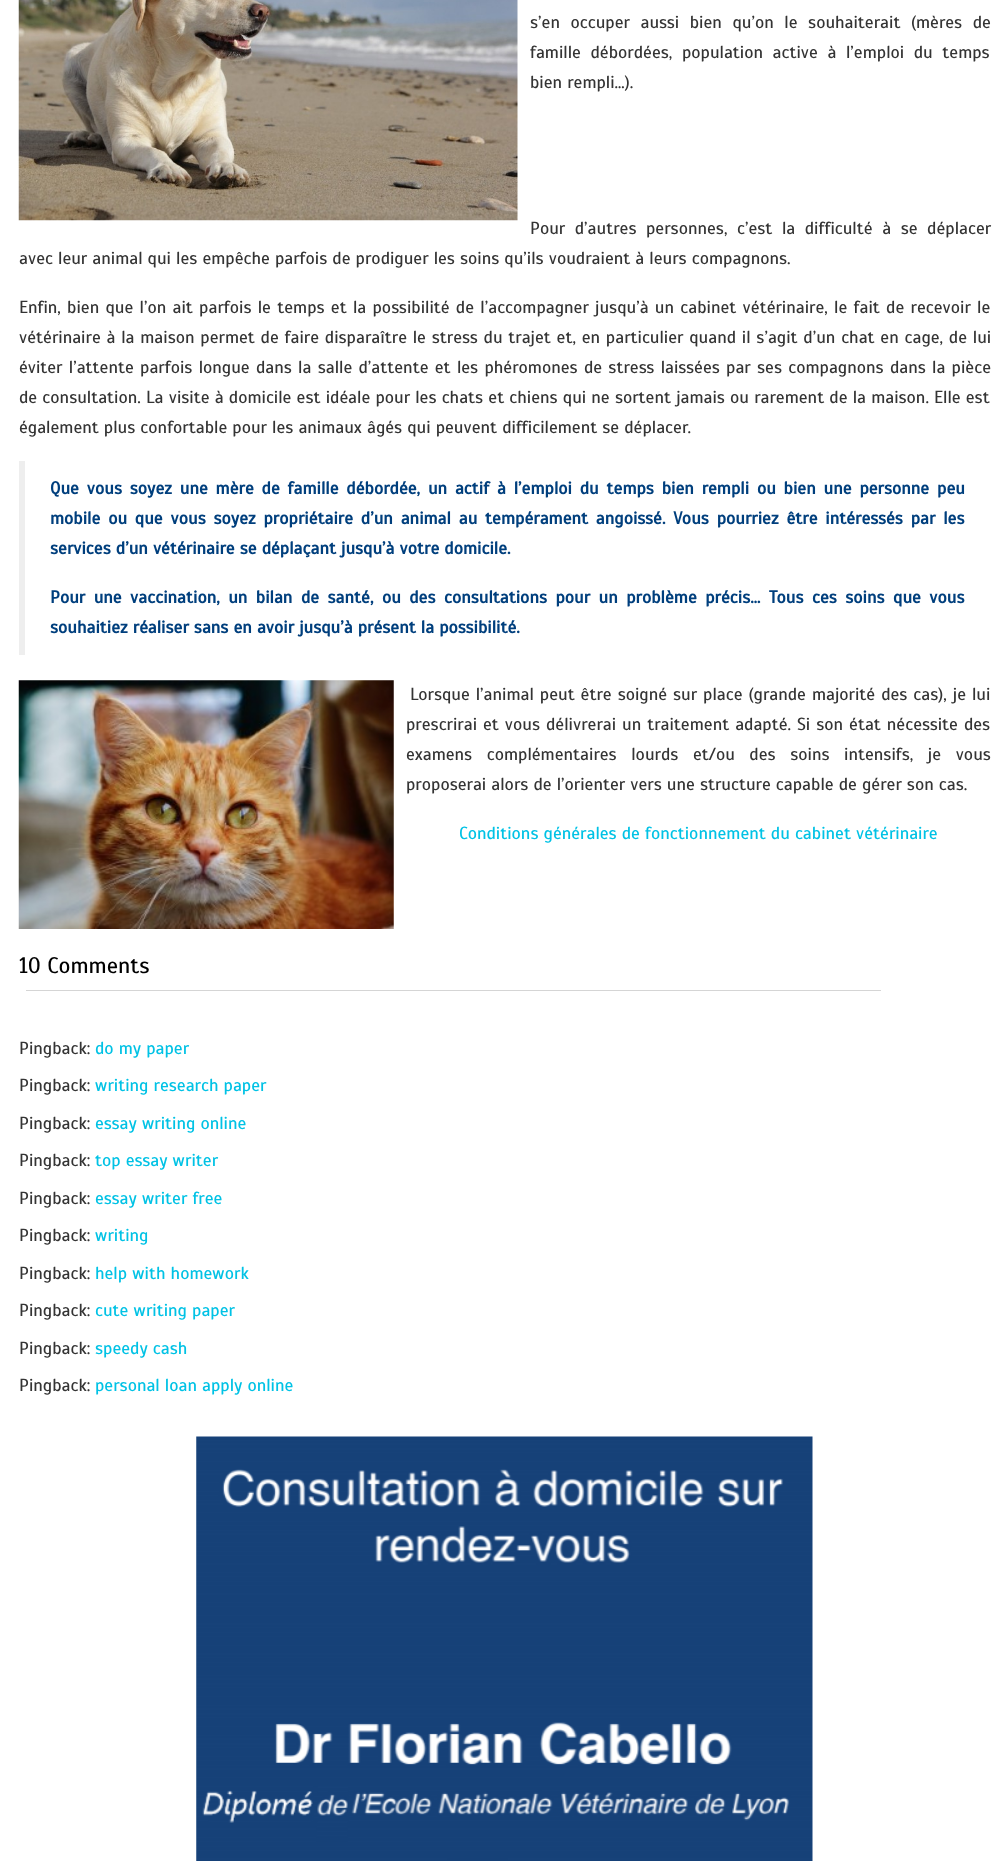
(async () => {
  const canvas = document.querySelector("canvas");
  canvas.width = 1008;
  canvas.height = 1861;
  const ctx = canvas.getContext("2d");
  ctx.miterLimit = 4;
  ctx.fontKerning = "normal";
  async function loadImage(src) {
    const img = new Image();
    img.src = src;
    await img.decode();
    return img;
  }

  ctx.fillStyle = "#ffffff";
  ctx.fillRect(0, 0, 1008, 1861);
  ctx.drawImage(await loadImage("img/1.png"), 18, 0, 500, 221);
  ctx.fillStyle = "#eeeeee";
  ctx.fillRect(19, 461, 6, 194);
  ctx.drawImage(await loadImage("img/2.png"), 18, 680, 376, 249);
  ctx.fillStyle = "#d5d5d5";
  ctx.fillRect(26, 990, 855, 1);
  ctx.drawImage(await loadImage("img/3.png"), 196, 1436, 617, 425);
  ctx.wordSpacing = "5.5px";
  ctx.font = "17.5px Scada";
  ctx.fillStyle = "#343434";
  ctx.fillText("s’en occuper aussi bien qu’on le souhaiterait (mères de", 530, 28);
  ctx.wordSpacing = "4.5px";
  ctx.fillText("famille débordées, population active à l’emploi du temps", 530, 58);
  ctx.wordSpacing = "0px";
  ctx.fillText("bien rempli…).", 530, 88);
  ctx.wordSpacing = "4.5px";
  ctx.fillText("Pour d’autres personnes, c’est la difficulté à se déplacer", 530, 234);
  ctx.wordSpacing = "0px";
  ctx.fillText("avec leur animal qui les empêche parfois de prodiguer les soins qu’ils voudraient à leurs compagnons.", 19, 264);
  ctx.wordSpacing = "1.2px";
  ctx.fillText("Enfin, bien que l’on ait parfois le temps et la possibilité de l’accompagner jusqu’à un cabinet vétérinaire, le fait de recevoir le", 19, 313);
  ctx.wordSpacing = "0.7px";
  ctx.fillText("vétérinaire à la maison permet de faire disparaître le stress du trajet et, en particulier quand il s’agit d’un chat en cage, de lui", 19, 343);
  ctx.wordSpacing = "1.2px";
  ctx.fillText("éviter l’attente parfois longue dans la salle d’attente et les phéromones de stress laissées par ses compagnons dans la pièce", 19, 373);
  ctx.wordSpacing = "0.1px";
  ctx.fillText("de consultation. La visite à domicile est idéale pour les chats et chiens qui ne sortent jamais ou rarement de la maison. Elle est", 19, 403);
  ctx.wordSpacing = "0px";
  ctx.fillText("également plus confortable pour les animaux âgés qui peuvent difficilement se déplacer.", 19, 433);
  ctx.wordSpacing = "2.75px";
  ctx.font = "bold 17.5px Scada";
  ctx.fillStyle = "#003f7d";
  ctx.fillText("Que vous soyez une mère de famille débordée, un actif à l’emploi du temps bien rempli ou bien une personne peu", 50, 494);
  ctx.fillText("mobile ou que vous soyez propriétaire d’un animal au tempérament angoissé. Vous pourriez être intéressés par les", 50, 524);
  ctx.wordSpacing = "0px";
  ctx.fillText("services d’un vétérinaire se déplaçant jusqu’à votre domicile.", 50, 554);
  ctx.wordSpacing = "3.4px";
  ctx.fillText("Pour une vaccination, un bilan de santé, ou des consultations pour un problème précis…", 50, 603);
  ctx.fillText("Tous ces soins que vous", 769, 603);
  ctx.wordSpacing = "0px";
  ctx.fillText("souhaitiez réaliser sans en avoir jusqu’à présent la possibilité.", 50, 633);
  ctx.wordSpacing = "0.9px";
  ctx.font = "17.5px Scada";
  ctx.fillStyle = "#343434";
  ctx.fillText("Lorsque l’animal peut être soigné sur place (grande majorité des cas), je lui", 410, 700);
  ctx.fillText("prescrirai et vous délivrerai un traitement adapté. Si son état nécessite des", 406, 730);
  ctx.wordSpacing = "9.5px";
  ctx.fillText("examens complémentaires lourds et/ou des soins intensifs, je vous", 406, 760);
  ctx.wordSpacing = "0px";
  ctx.fillText("proposerai alors de l’orienter vers une structure capable de gérer son cas.", 406, 790);
  ctx.fillStyle = "#00c2e5";
  ctx.fillText("Conditions générales de fonctionnement du cabinet vétérinaire", 459, 839);
  ctx.font = "22.5px Scada";
  ctx.fillStyle = "#000000";
  ctx.fillText("10 Comments", 19, 973);
  ctx.font = "17.5px Scada";
  ctx.fillStyle = "#343434";
  ctx.fillText("Pingback:", 19, 1054);
  ctx.fillStyle = "#00c2e5";
  ctx.fillText("do my paper", 95, 1054);
  ctx.fillStyle = "#343434";
  ctx.fillText("Pingback:", 19, 1091);
  ctx.fillStyle = "#00c2e5";
  ctx.fillText("writing research paper", 95, 1091);
  ctx.fillStyle = "#343434";
  ctx.fillText("Pingback:", 19, 1129);
  ctx.fillStyle = "#00c2e5";
  ctx.fillText("essay writing online", 95, 1129);
  ctx.fillStyle = "#343434";
  ctx.fillText("Pingback:", 19, 1166);
  ctx.fillStyle = "#00c2e5";
  ctx.fillText("top essay writer", 95, 1166);
  ctx.fillStyle = "#343434";
  ctx.fillText("Pingback:", 19, 1204);
  ctx.fillStyle = "#00c2e5";
  ctx.fillText("essay writer free", 95, 1204);
  ctx.fillStyle = "#343434";
  ctx.fillText("Pingback:", 19, 1241);
  ctx.fillStyle = "#00c2e5";
  ctx.fillText("writing", 95, 1241);
  ctx.fillStyle = "#343434";
  ctx.fillText("Pingback:", 19, 1279);
  ctx.fillStyle = "#00c2e5";
  ctx.fillText("help with homework", 95, 1279);
  ctx.fillStyle = "#343434";
  ctx.fillText("Pingback:", 19, 1316);
  ctx.fillStyle = "#00c2e5";
  ctx.fillText("cute writing paper", 95, 1316);
  ctx.fillStyle = "#343434";
  ctx.fillText("Pingback:", 19, 1354);
  ctx.fillStyle = "#00c2e5";
  ctx.fillText("speedy cash", 95, 1354);
  ctx.fillStyle = "#343434";
  ctx.fillText("Pingback:", 19, 1391);
  ctx.fillStyle = "#00c2e5";
  ctx.fillText("personal loan apply online", 95, 1391);
})();
